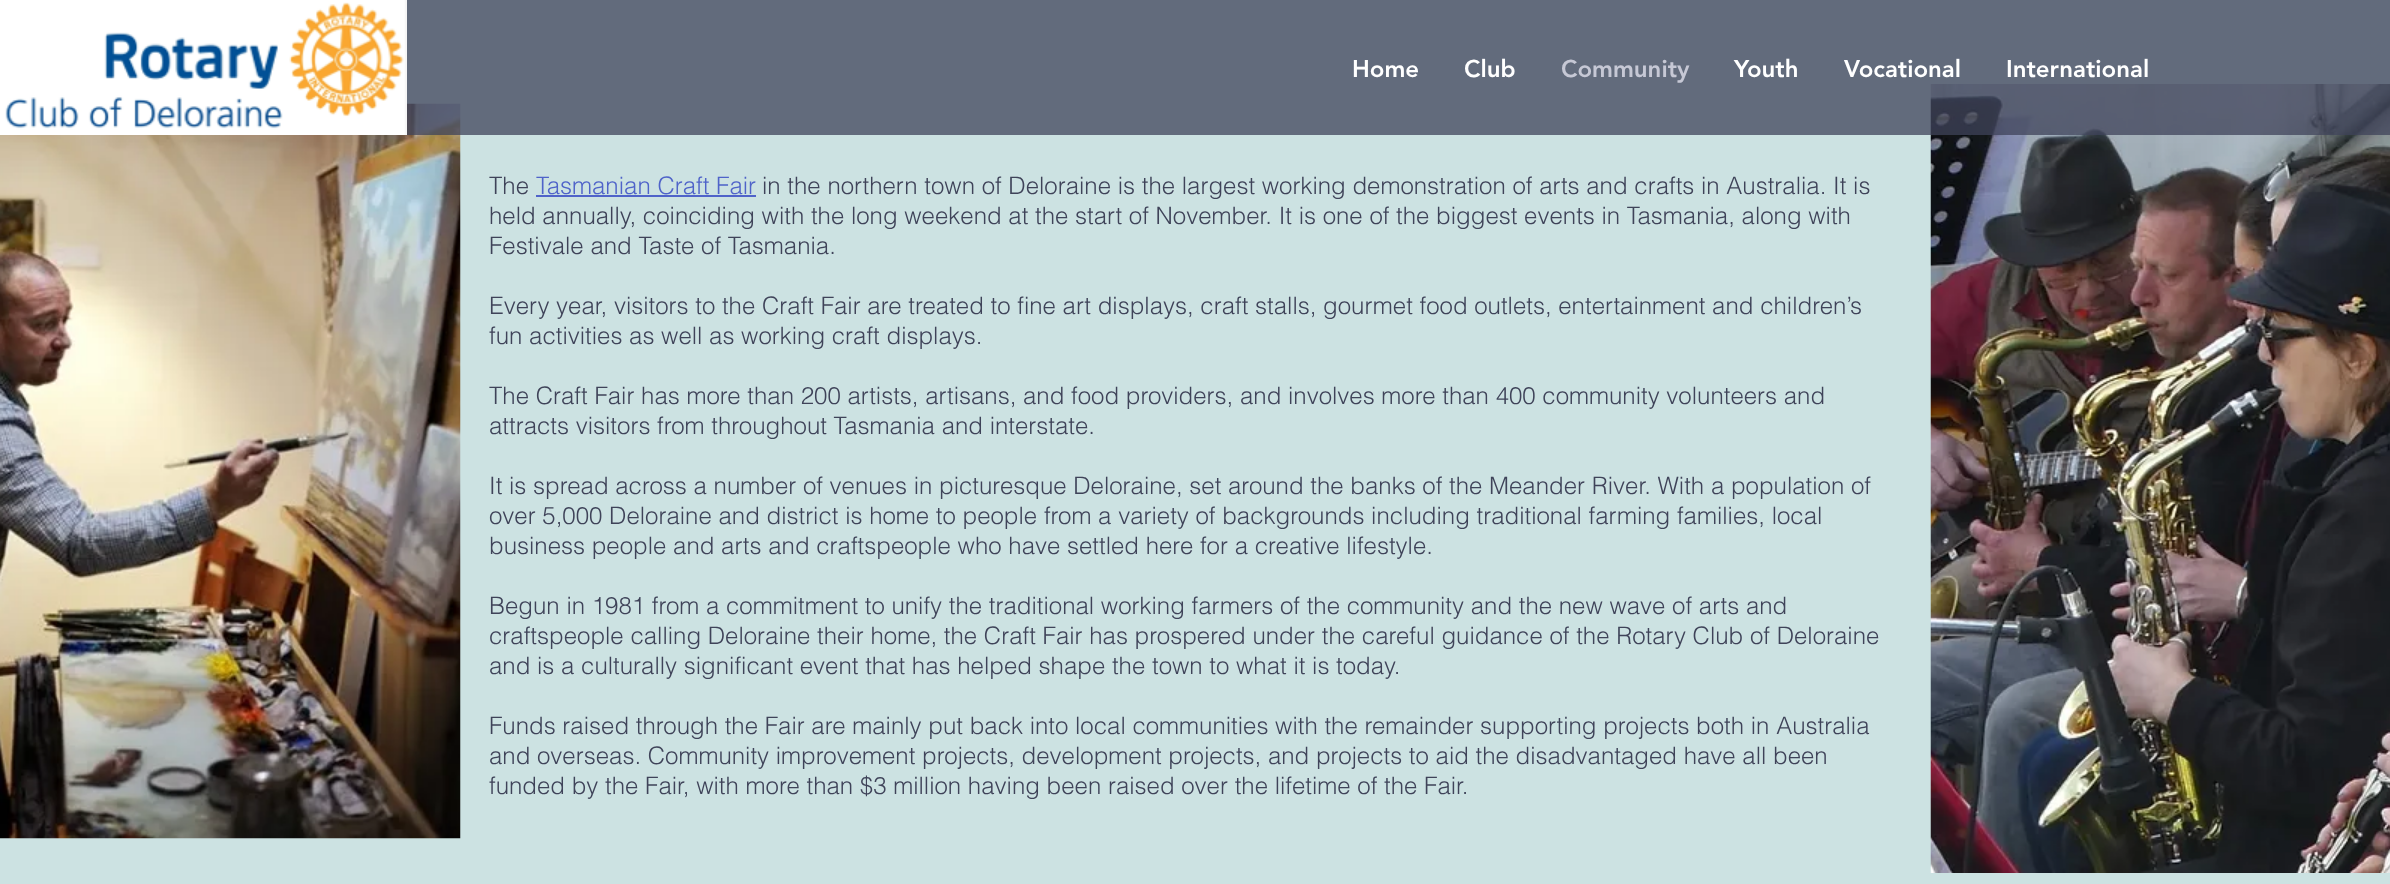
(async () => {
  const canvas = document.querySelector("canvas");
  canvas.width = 2390;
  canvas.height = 884;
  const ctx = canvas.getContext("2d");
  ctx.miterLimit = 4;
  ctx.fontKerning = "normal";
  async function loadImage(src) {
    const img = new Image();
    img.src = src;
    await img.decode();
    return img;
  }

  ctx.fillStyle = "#cce2e2";
  ctx.fillRect(0, 0, 2390, 884);
  ctx.drawImage(await loadImage("img/2.png"), 0, 103, 461, 736);
  ctx.drawImage(await loadImage("img/1.png"), 0, 0, 407, 135);
  ctx.drawImage(await loadImage("img/3.png"), 1930, 84, 460, 789);
  ctx.fillStyle = "rgba(63, 67, 89, 0.75)";
  ctx.fillRect(407, 0, 1983, 135);
  ctx.fillStyle = "#4f63c9";
  ctx.fillRect(536, 195, 220, 2);
  ctx.font = "900 24px 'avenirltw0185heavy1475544'";
  ctx.fillStyle = "#ffffff";
  ctx.fillText("Home", 1352, 77);
  ctx.fillText("Club", 1464, 77);
  ctx.fillStyle = "#c6c8d5";
  ctx.fillText("Community", 1561, 77);
  ctx.fillStyle = "#ffffff";
  for (const [text, x, y] of [
    ["Youth", 1734, 77],
    ["Vocational", 1844, 77],
    ["International", 2006, 77],
  ]) {
    ctx.fillText(text, x, y);
  }
  ctx.font = "300 24px helvetica";
  ctx.fillStyle = "#3f4359";
  ctx.fillText("The", 489, 194);
  ctx.fillStyle = "#4f63c9";
  ctx.fillText("Tasmanian Craft Fair", 536, 194);
  ctx.fillStyle = "#3f4359";
  for (const [text, x, y] of [
    ["in the northern town of Deloraine is the largest working demonstration of arts and crafts in Australia. It is", 762, 194],
    ["held annually, coinciding with the long weekend at the start of November. It is one of the biggest events in Tasmania, along with", 489, 224],
    ["Festivale and Taste of Tasmania.", 489, 254],
    ["Every year, visitors to the Craft Fair are treated to fine art displays, craft stalls, gourmet food outlets, entertainment and children’s", 489, 314],
    ["fun activities as well as working craft displays.", 489, 344],
    ["The Craft Fair has more than 200 artists, artisans, and food providers, and involves more than 400 community volunteers and", 489, 404],
    ["attracts visitors from throughout Tasmania and interstate.", 489, 434],
    ["It is spread across a number of venues in picturesque Deloraine, set around the banks of the Meander River. With a population of", 489, 494],
    ["over 5,000 Deloraine and district is home to people from a variety of backgrounds including traditional farming families, local", 489, 524],
    ["business people and arts and craftspeople who have settled here for a creative lifestyle.", 489, 554],
    ["Begun in 1981 from a commitment to unify the traditional working farmers of the community and the new wave of arts and", 489, 614],
    ["craftspeople calling Deloraine their home, the Craft Fair has prospered under the careful guidance of the Rotary Club of Deloraine", 489, 644],
    ["and is a culturally significant event that has helped shape the town to what it is today.", 489, 674],
    ["Funds raised through the Fair are mainly put back into local communities with the remainder supporting projects both in Australia", 489, 734],
    ["and overseas. Community improvement projects, development projects, and projects to aid the disadvantaged have all been", 489, 764],
    ["funded by the Fair, with more than $3 million having been raised over the lifetime of the Fair.", 489, 794],
  ]) {
    ctx.fillText(text, x, y);
  }
})();
